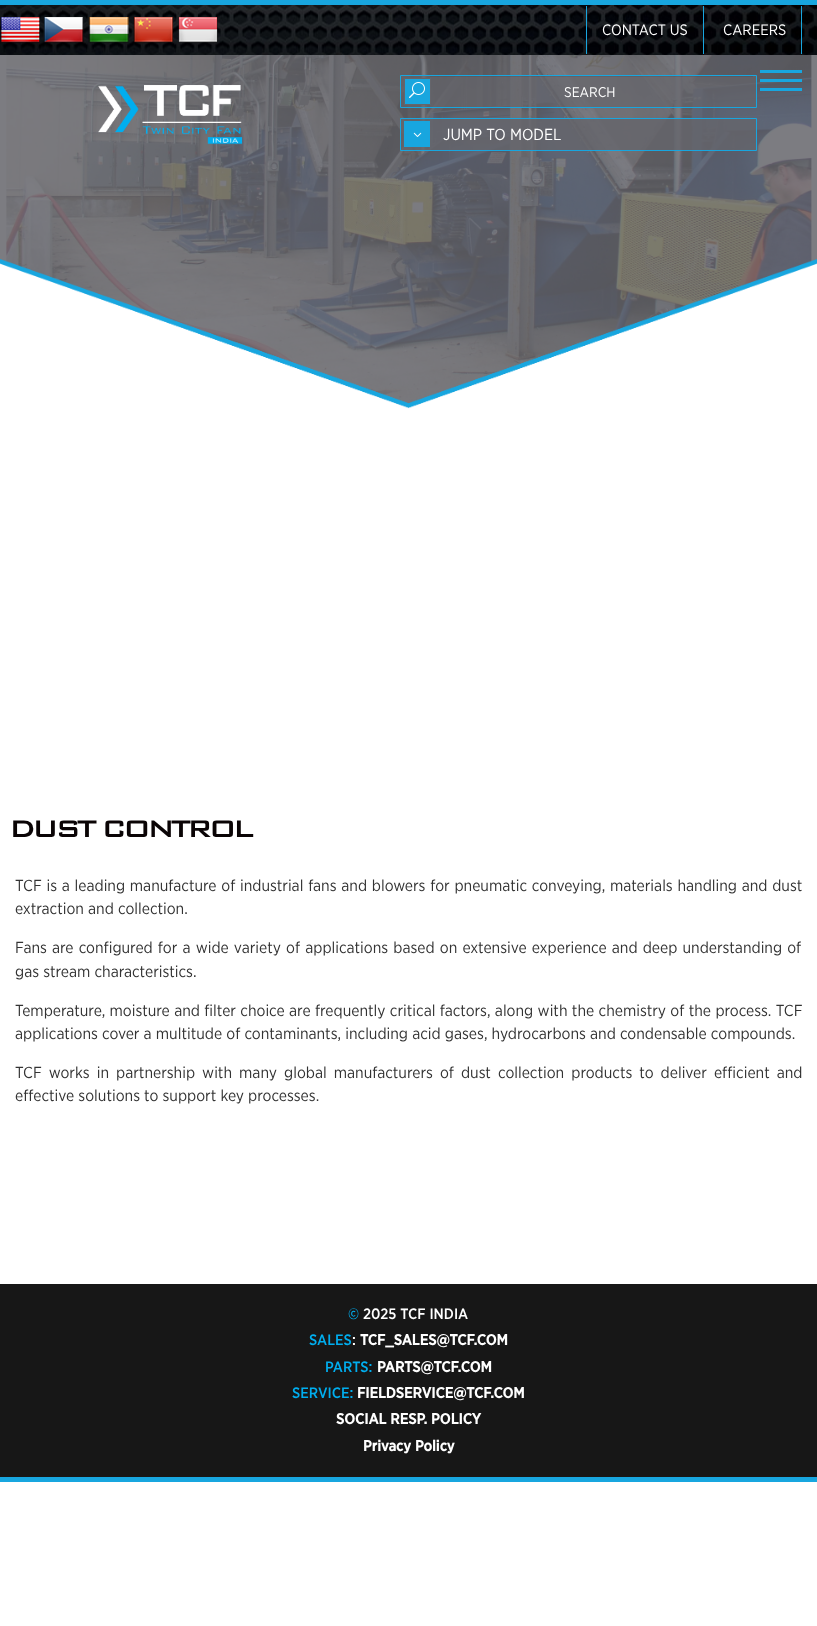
(async () => {
  const canvas = document.querySelector("canvas");
  canvas.width = 817;
  canvas.height = 1626;
  const ctx = canvas.getContext("2d");
  ctx.miterLimit = 4;
  ctx.fontKerning = "normal";
  async function loadImage(src) {
    const img = new Image();
    img.src = src;
    await img.decode();
    return img;
  }

  ctx.fillStyle = "#ffffff";
  ctx.fillRect(0, 0, 817, 1626);
  ctx.fillStyle = "#7c7c81";
  ctx.fillRect(0, 55, 817, 207);
  ctx.drawImage(await loadImage("img/1.png"), 0, 5, 817, 50);
  ctx.fillStyle = "#18a6df";
  ctx.fillRect(0, 0, 817, 5);
  ctx.drawImage(await loadImage("img/2.png"), 0, 17, 40, 26);
  ctx.drawImage(await loadImage("img/3.png"), 44, 17, 40, 26);
  ctx.drawImage(await loadImage("img/4.png"), 88, 17, 41, 26);
  ctx.drawImage(await loadImage("img/5.png"), 133, 17, 40, 26);
  ctx.drawImage(await loadImage("img/6.png"), 178, 17, 40, 26);
  for (const [x, y, w, h, color] of [
    [586, 6, 1, 48, "#18a6df"],
    [703, 6, 1, 48, "#18a6df"],
    [801, 6, 1, 48, "#18a6df"],
  ]) {
    ctx.fillStyle = color;
    ctx.fillRect(x, y, w, h);
  }
  ctx.drawImage(await loadImage("img/10.png"), 6, 55, 806, 349);
  for (const [x, y, w, h, color] of [
    [760, 70, 42, 3, "#18a6df"],
    [760, 79, 42, 3, "#18a6df"],
    [760, 88, 42, 3, "#18a6df"],
  ]) {
    ctx.fillStyle = color;
    ctx.fillRect(x, y, w, h);
  }
  ctx.drawImage(await loadImage("img/7.png"), 98, 85, 145, 60);
  ctx.fillStyle = "rgba(101, 101, 107, 0.65)";
  ctx.beginPath();
  ctx.rect(400.5, 75.5, 356, 32);
  ctx.fill();
  ctx.strokeStyle = "#18a6df";
  ctx.stroke();
  ctx.fillStyle = "#18a6df";
  ctx.beginPath();
  ctx.rect(404.5, 78.5, 26, 26);
  ctx.fill();
  ctx.strokeStyle = "#65656b";
  ctx.stroke();
  ctx.drawImage(await loadImage("img/8.png"), 409, 82, 16, 16);
  ctx.fillStyle = "rgba(0, 0, 0, 0.07)";
  ctx.fillRect(430, 76, 323, 1);
  ctx.fillStyle = "rgba(101, 101, 107, 0.8)";
  ctx.beginPath();
  ctx.rect(400.5, 118.5, 356, 32);
  ctx.fill();
  ctx.strokeStyle = "#18a6df";
  ctx.stroke();
  ctx.fillStyle = "#18a6df";
  ctx.fillRect(404, 121, 26, 26);
  ctx.drawImage(await loadImage("img/9.png"), 413, 132, 9, 5);
  ctx.drawImage(await loadImage("img/11.png"), 0, 259, 817, 205);
  ctx.fillRect(0, 1477, 817, 5);
  ctx.fillStyle = "#171717";
  ctx.fillRect(0, 1284, 817, 193);
  ctx.font = "15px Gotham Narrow";
  ctx.fillStyle = "#ffffff";
  ctx.fillText("CONTACT US", 602, 35);
  ctx.fillText("CAREERS", 723, 35);
  ctx.font = "14px Gotham Narrow";
  ctx.fillText("SEARCH", 564, 97);
  ctx.font = "16px Gotham Narrow";
  ctx.fillText("JUMP TO MODEL", 443, 140);
  ctx.letterSpacing = "-4px";
  ctx.font = "500 32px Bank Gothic";
  ctx.fillStyle = "#0a0405";
  ctx.fillText("DUST CONTROL", 9, 837);
  ctx.letterSpacing = "0px";
  ctx.wordSpacing = "0.6px";
  ctx.font = "16px Gotham Narrow";
  ctx.fillStyle = "#333333";
  ctx.fillText("TCF is a leading manufacture of industrial fans and blowers for pneumatic conveying, materials handling and dust", 15, 891);
  ctx.wordSpacing = "0px";
  ctx.fillText("extraction and collection.", 15, 914);
  ctx.wordSpacing = "1px";
  ctx.fillText("Fans are configured for a wide variety of applications based on extensive experience and deep understanding of", 15, 953);
  ctx.wordSpacing = "0px";
  ctx.fillText("gas stream characteristics.", 15, 977);
  ctx.wordSpacing = "0.2px";
  ctx.fillText("Temperature, moisture and filter choice are frequently critical factors, along with the chemistry of the process. TCF", 15, 1016);
  ctx.wordSpacing = "0px";
  ctx.fillText("applications cover a multitude of contaminants, including acid gases, hydrocarbons and condensable compounds.", 15, 1039);
  ctx.wordSpacing = "2.9px";
  ctx.fillText("TCF works in partnership with many global manufacturers of dust collection products to deliver efficient and", 15, 1078);
  ctx.wordSpacing = "0px";
  ctx.fillText("effective solutions to support key processes.", 15, 1101);
  ctx.font = "500 15px Gotham Narrow";
  ctx.fillStyle = "#00aeef";
  ctx.fillText("©", 348, 1319);
  ctx.fillStyle = "#ffffff";
  ctx.fillText("2025 TCF INDIA", 363, 1319);
  ctx.fillStyle = "#00aeef";
  ctx.fillText("SALES", 309, 1345);
  ctx.fillStyle = "#ffffff";
  ctx.fillText(":", 352, 1345);
  ctx.font = "bold 15px Gotham Narrow";
  ctx.fillText("TCF_SALES@TCF.COM", 360, 1345);
  ctx.font = "500 15px Gotham Narrow";
  ctx.fillStyle = "#00aeef";
  ctx.fillText("PARTS:", 325, 1372);
  ctx.font = "bold 15px Gotham Narrow";
  ctx.fillStyle = "#ffffff";
  ctx.fillText("PARTS@TCF.COM", 377, 1372);
  ctx.font = "500 15px Gotham Narrow";
  ctx.fillStyle = "#00aeef";
  ctx.fillText("SERVICE:", 292, 1398);
  ctx.font = "bold 15px Gotham Narrow";
  ctx.fillStyle = "#ffffff";
  for (const [text, x, y] of [
    ["FIELDSERVICE@TCF.COM", 357, 1398],
    ["SOCIAL RESP. POLICY", 336, 1424],
    ["Privacy Policy", 363, 1451],
  ]) {
    ctx.fillText(text, x, y);
  }
})();
